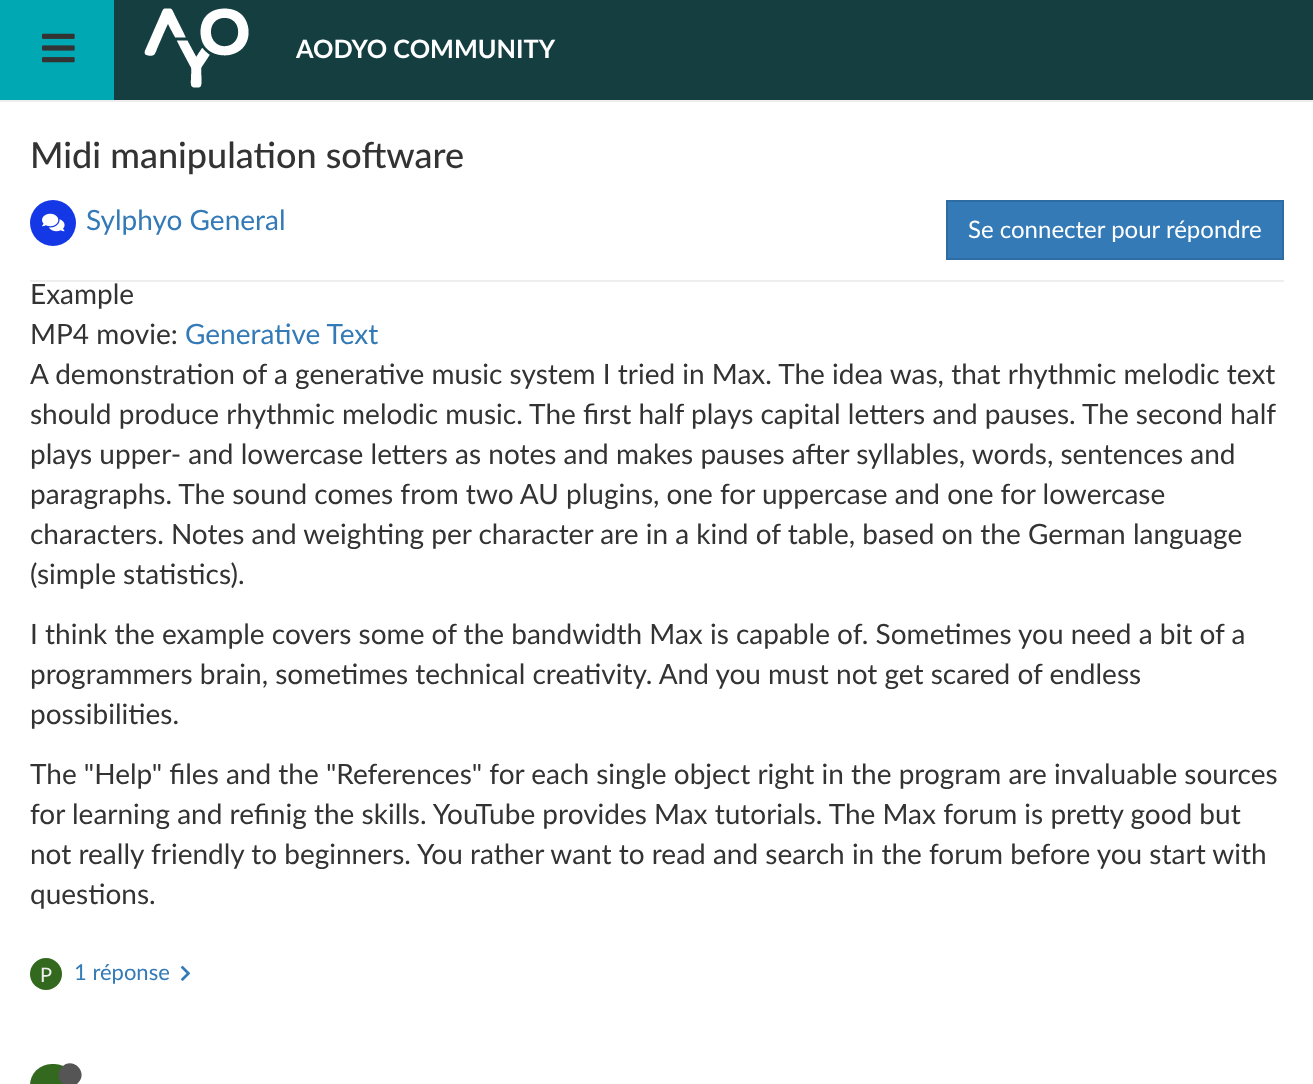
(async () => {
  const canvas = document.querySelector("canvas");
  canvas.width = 1313;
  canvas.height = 1084;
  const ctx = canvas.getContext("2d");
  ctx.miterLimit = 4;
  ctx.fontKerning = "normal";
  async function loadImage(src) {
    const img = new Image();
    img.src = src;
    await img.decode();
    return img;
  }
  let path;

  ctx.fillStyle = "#ffffff";
  ctx.fillRect(0, 0, 1313, 1084);
  for (const [x, y, w, h, color] of [
    [114, 0, 1199, 100, "#153e40"],
    [0, 100, 1313, 2, "#eeeeee"],
    [0, 0, 114, 100, "#00a8b3"],
  ]) {
    ctx.fillStyle = color;
    ctx.fillRect(x, y, w, h);
  }
  ctx.drawImage(await loadImage("img/1.png"), 42, 33, 33, 30);
  ctx.drawImage(await loadImage("img/2.png"), 144, 8, 105, 80);
  ctx.fillStyle = "#eeeeee";
  ctx.fillRect(30, 280, 1254, 2);
  ctx.fillStyle = "#1538e6";
  ctx.beginPath();
  ctx.arc(53, 223, 23, 0, Math.PI * 2);
  ctx.fill();
  ctx.drawImage(await loadImage("img/3.png"), 42, 213, 23, 19);
  ctx.fillStyle = "#337ab7";
  ctx.beginPath();
  ctx.rect(947, 201, 336, 58);
  ctx.fill();
  ctx.strokeStyle = "#2e6da4";
  ctx.lineWidth = 2;
  ctx.stroke();
  ctx.fillStyle = "#33691e";
  ctx.beginPath();
  ctx.arc(46, 974, 16, 0, Math.PI * 2);
  ctx.fill();
  ctx.drawImage(await loadImage("img/4.png"), 181, 966, 9, 15);
  ctx.beginPath();
  ctx.roundRect(30, 1064, 46, 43, 23);
  ctx.fill();
  ctx.fillStyle = "#555555";
  path = new Path2D("M62 1067C72.5 1056 89 1072.5 78 1083C67.5 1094 51 1077.5 62 1067Z");
  ctx.fill(path);
  ctx.font = "bold 25.25px Lato";
  ctx.fillStyle = "#ffffff";
  ctx.fillText("AODYO COMMUNITY", 296, 58);
  ctx.font = "500 36px Lato";
  ctx.fillStyle = "#333333";
  ctx.fillText("Midi manipulation software", 30, 168);
  ctx.font = "28px Lato";
  ctx.fillStyle = "#337ab7";
  ctx.fillText("Sylphyo General", 86, 230);
  ctx.font = "24px Lato";
  ctx.fillStyle = "#ffffff";
  ctx.fillText("Se connecter pour répondre", 968, 238);
  ctx.font = "28px Lato";
  ctx.fillStyle = "#333333";
  ctx.fillText("Example", 30, 304);
  ctx.fillText("MP4 movie:", 30, 344);
  ctx.fillStyle = "#337ab7";
  ctx.fillText("Generative Text", 185, 344);
  ctx.fillStyle = "#333333";
  for (const [text, x, y] of [
    ["A demonstration of a generative music system I tried in Max. The idea was, that rhythmic melodic text", 30, 384],
    ["should produce rhythmic melodic music. The first half plays capital letters and pauses. The second half", 30, 424],
    ["plays upper- and lowercase letters as notes and makes pauses after syllables, words, sentences and", 30, 464],
    ["paragraphs. The sound comes from two AU plugins, one for uppercase and one for lowercase", 30, 504],
    ["characters. Notes and weighting per character are in a kind of table, based on the German language", 30, 544],
    ["(simple statistics).", 30, 584],
    ["I think the example covers some of the bandwidth Max is capable of. Sometimes you need a bit of a", 30, 644],
    ["programmers brain, sometimes technical creativity. And you must not get scared of endless", 30, 684],
    ["possibilities.", 30, 724],
    ["The \"Help\" files and the \"References\" for each single object right in the program are invaluable sources", 30, 784],
    ["for learning and refinig the skills. YouTube provides Max tutorials. The Max forum is pretty good but", 30, 824],
    ["not really friendly to beginners. You rather want to read and search in the forum before you start with", 30, 864],
    ["questions.", 30, 904],
  ]) {
    ctx.fillText(text, x, y);
  }
  ctx.font = "20px Lato";
  ctx.fillStyle = "#eeeeee";
  ctx.fillText("P", 40, 982);
  ctx.font = "22px Lato";
  ctx.fillStyle = "#337ab7";
  ctx.fillText("1 réponse", 74, 980);
})();
